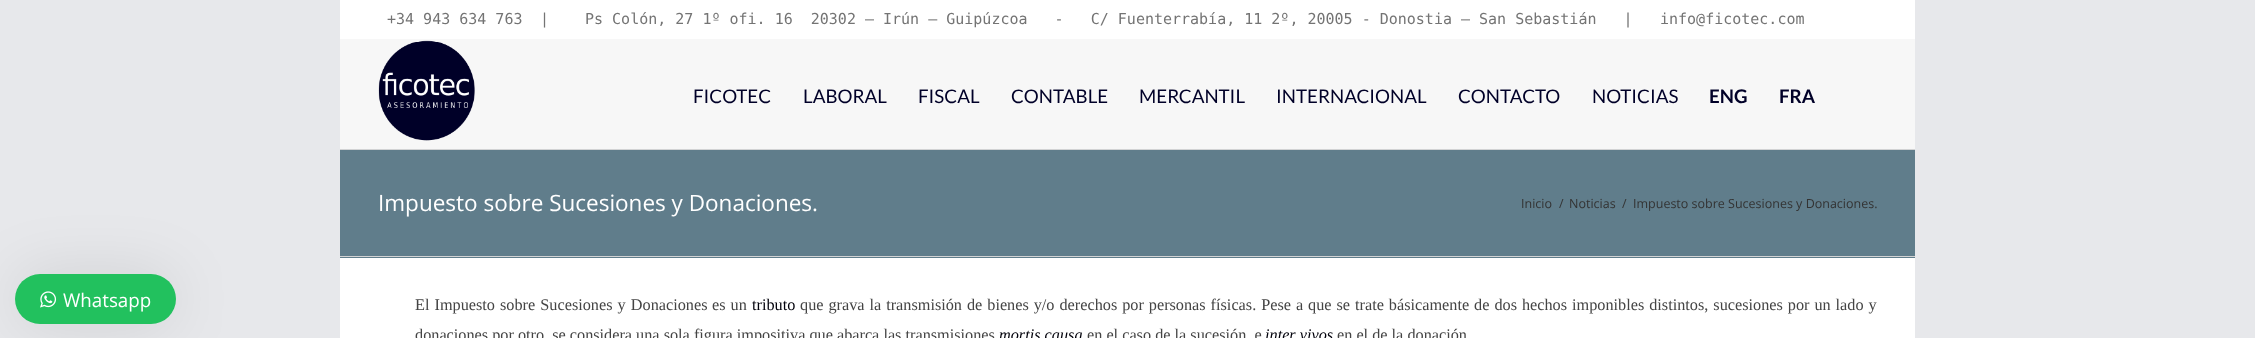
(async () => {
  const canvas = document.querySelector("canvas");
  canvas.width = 2255;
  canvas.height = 338;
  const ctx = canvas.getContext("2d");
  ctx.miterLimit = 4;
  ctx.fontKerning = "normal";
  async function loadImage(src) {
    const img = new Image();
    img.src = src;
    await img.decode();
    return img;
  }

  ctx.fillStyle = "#e7e8eb";
  ctx.fillRect(0, 0, 2255, 338);
  ctx.fillStyle = "rgba(0, 0, 0, 0.1)";
  ctx.filter = "blur(31px)";
  ctx.beginPath();
  ctx.roundRect(15, 274, 161, 50, 25);
  ctx.fill();
  ctx.filter = "none";
  ctx.fillStyle = "#22c15e";
  ctx.beginPath();
  ctx.roundRect(15, 274, 161, 50, 25);
  ctx.fill();
  ctx.drawImage(await loadImage("img/1.png"), 40, 291, 17, 17);
  ctx.fillStyle = "#ffffff";
  ctx.fillRect(340, 0, 1575, 39);
  ctx.fillStyle = "#f7f7f7";
  ctx.fillRect(340, 39, 1575, 110);
  ctx.drawImage(await loadImage("img/2.png"), 378, 40, 97, 101);
  for (const [x, y, w, h, color] of [
    [340, 150, 1575, 108, "#607d8b"],
    [340, 149, 1575, 1, "#d2d3d4"],
    [340, 256, 1575, 1, "#d2d3d4"],
    [340, 258, 1575, 80, "#ffffff"],
  ]) {
    ctx.fillStyle = color;
    ctx.fillRect(x, y, w, h);
  }
  ctx.font = "18.75px Open Sans";
  ctx.fillText("Whatsapp", 63, 307);
  ctx.font = "15px DejaVu Sans Mono";
  ctx.fillStyle = "#747474";
  for (const [text, x, y] of [
    ["+34 943 634 763", 387, 24],
    ["|", 540, 24],
    ["Ps Colón, 27 1º ofi. 16  20302 – Irún – Guipúzcoa   -   C/ Fuenterrabía, 11 2º, 20005 - Donostia – San Sebastián   |", 585, 24],
    ["info@ficotec.com", 1660, 24],
  ]) {
    ctx.fillText(text, x, y);
  }
  ctx.font = "18.75px Lato";
  ctx.fillStyle = "#000028";
  for (const [text, x, y] of [
    ["FICOTEC", 693, 103],
    ["LABORAL", 803, 103],
    ["FISCAL", 918, 103],
    ["CONTABLE", 1011, 103],
    ["MERCANTIL", 1139, 103],
    ["INTERNACIONAL", 1276, 103],
    ["CONTACTO", 1458, 103],
    ["NOTICIAS", 1592, 103],
  ]) {
    ctx.fillText(text, x, y);
  }
  ctx.font = "bold 18.75px Lato";
  ctx.fillText("ENG", 1709, 103);
  ctx.fillText("FRA", 1779, 103);
  ctx.font = "22.5px Open Sans";
  ctx.fillStyle = "#ffffff";
  ctx.fillText("Impuesto sobre Sucesiones y Donaciones.", 378, 211);
  ctx.font = "12.5px Open Sans";
  ctx.fillStyle = "#333333";
  for (const [text, x, y] of [
    ["Inicio", 1521, 208],
    ["/", 1559, 208],
    ["Noticias", 1569, 208],
    ["/", 1622, 208],
    ["Impuesto sobre Sucesiones y Donaciones.", 1633, 208],
  ]) {
    ctx.fillText(text, x, y);
  }
  ctx.wordSpacing = "1px";
  ctx.font = "16.25px Liberation Serif";
  ctx.fillStyle = "#444444";
  ctx.fillText("El Impuesto sobre Sucesiones y Donaciones", 415, 310);
  ctx.fillText("es un", 712, 310);
  ctx.wordSpacing = "0px";
  ctx.fillStyle = "#00000a";
  ctx.fillText("tributo", 752, 310);
  ctx.wordSpacing = "0.9px";
  ctx.fillStyle = "#444444";
  ctx.fillText("que grava la transmisión de bienes y/o derechos por personas físicas. Pese a que se trate básicamente de dos hechos imponibles distintos, sucesiones por un lado y", 800, 310);
  ctx.wordSpacing = "0px";
  ctx.fillText("donaciones por otro, se considera una sola figura impositiva que abarca las transmisiones", 415, 340);
  ctx.font = "italic 16.25px Liberation Serif";
  ctx.fillStyle = "#00000a";
  ctx.fillText("mortis causa", 999, 340);
  ctx.font = "16.25px Liberation Serif";
  ctx.fillStyle = "#444444";
  ctx.fillText("en el caso de la sucesión, e", 1087, 340);
  ctx.font = "italic 16.25px Liberation Serif";
  ctx.fillStyle = "#00000a";
  ctx.fillText("inter vivos", 1265, 340);
  ctx.font = "16.25px Liberation Serif";
  ctx.fillStyle = "#444444";
  ctx.fillText("en el de la donación", 1337, 340);
})();
